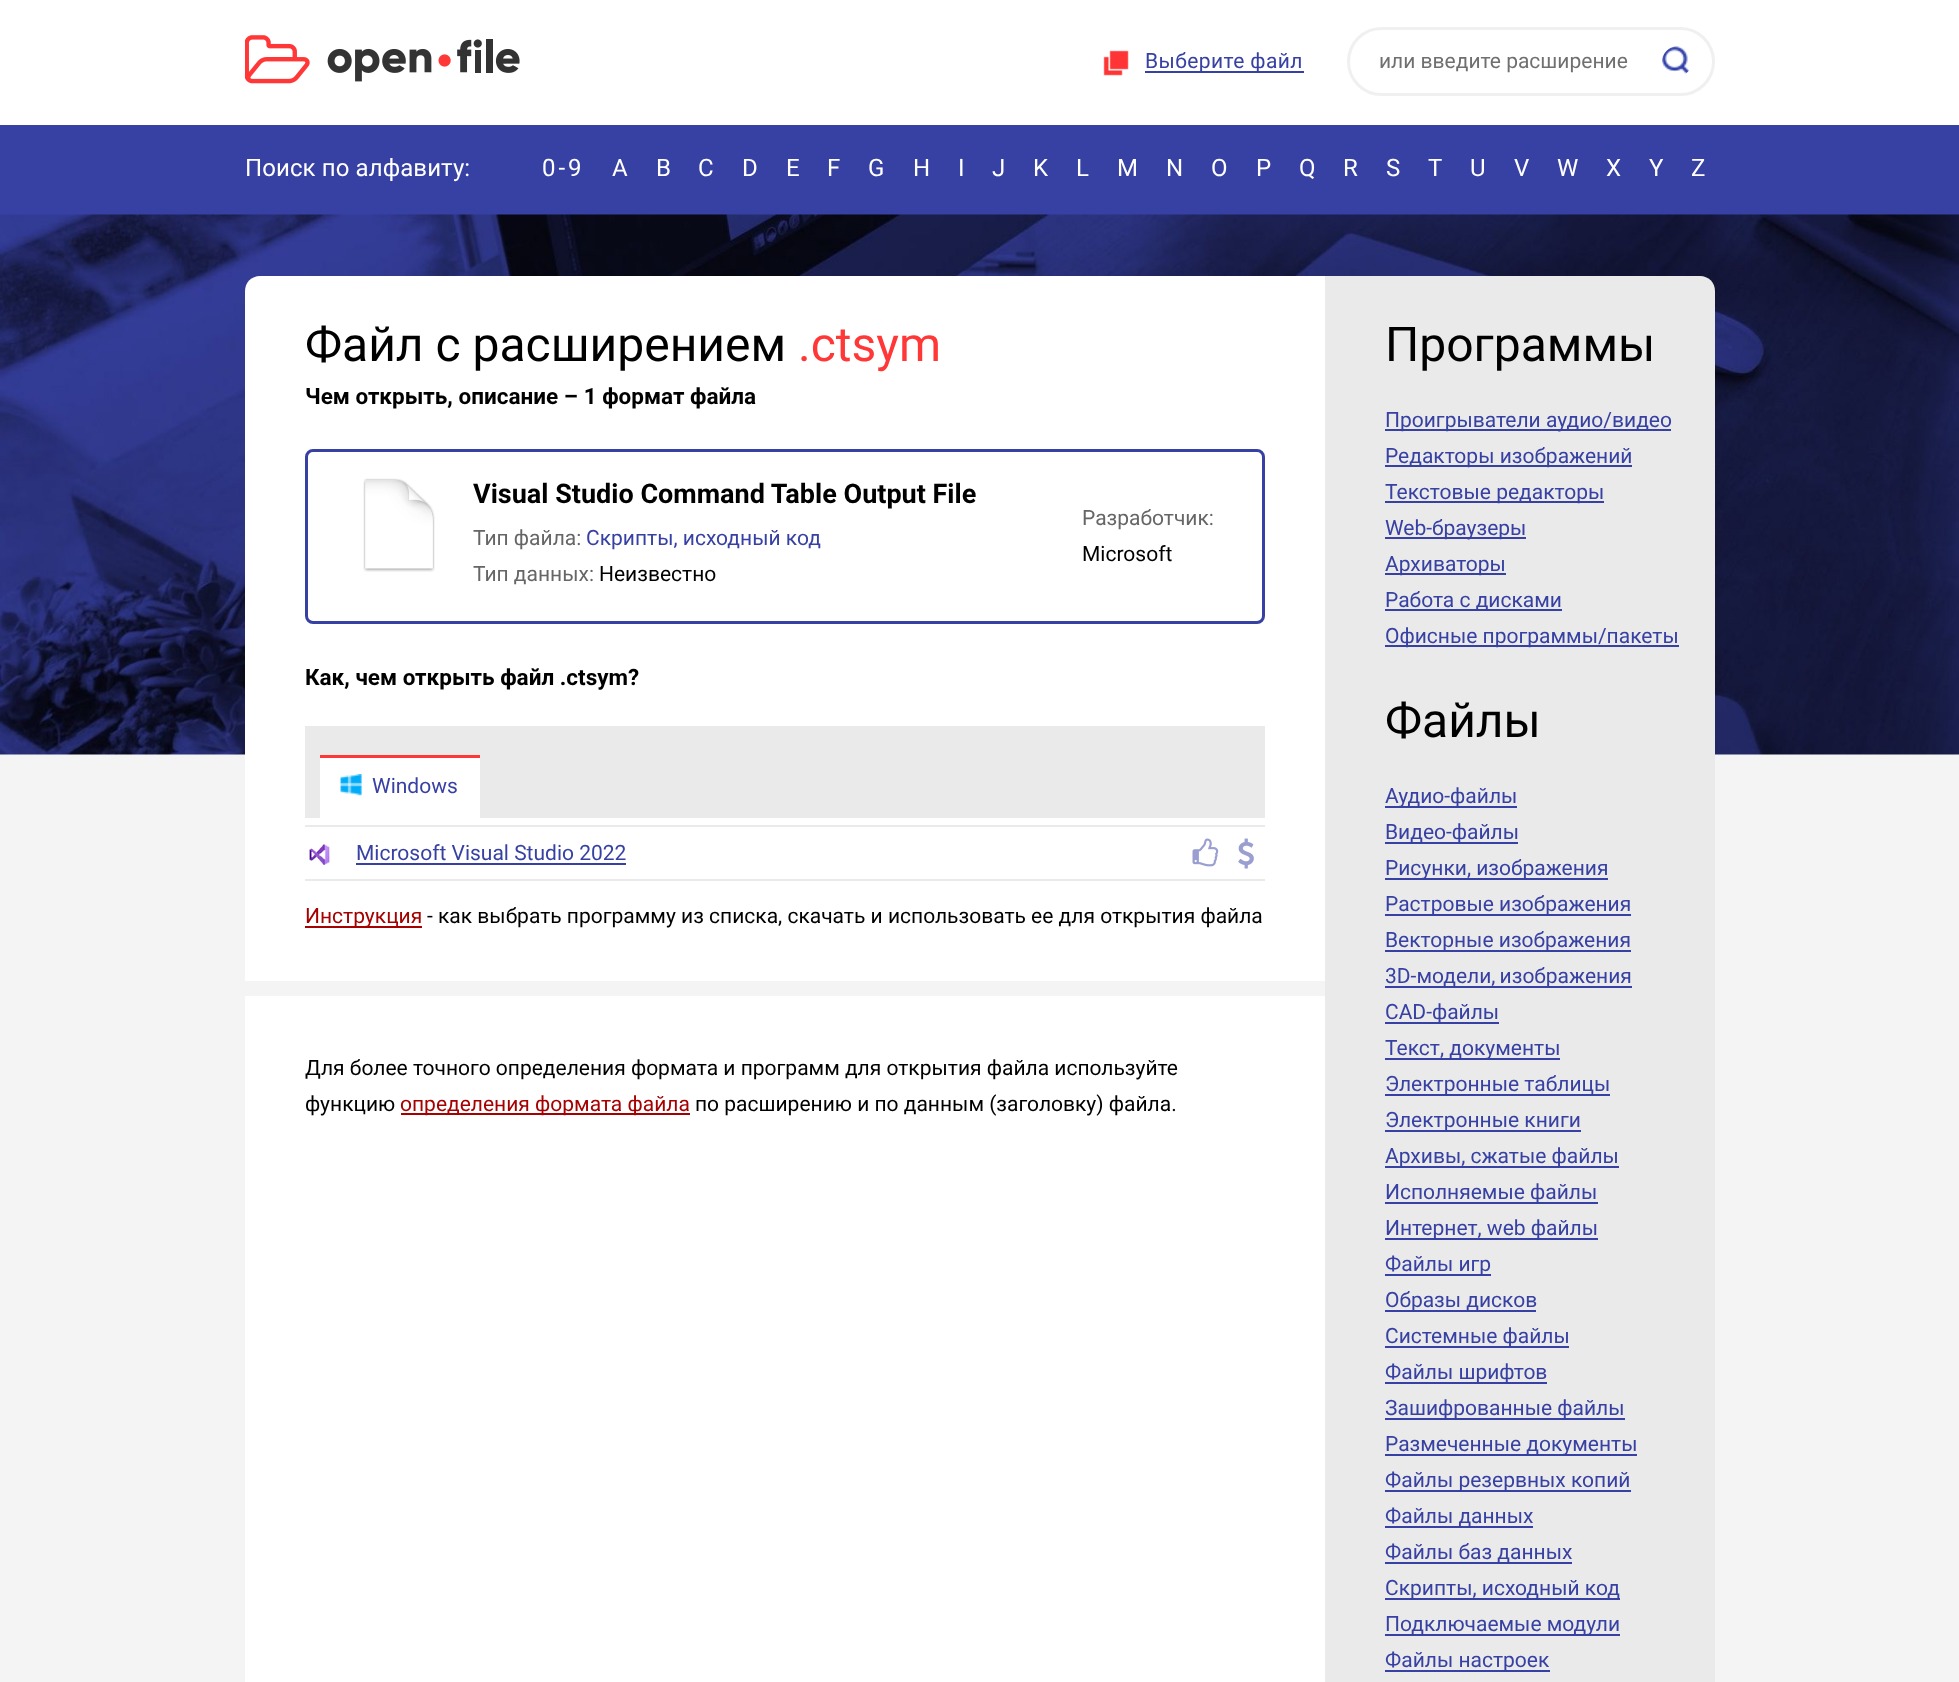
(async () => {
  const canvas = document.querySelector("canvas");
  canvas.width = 1959;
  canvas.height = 1682;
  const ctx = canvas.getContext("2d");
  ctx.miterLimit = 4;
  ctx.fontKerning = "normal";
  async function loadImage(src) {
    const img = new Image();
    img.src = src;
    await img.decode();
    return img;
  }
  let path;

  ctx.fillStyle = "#f4f4f4";
  ctx.fillRect(0, 0, 1959, 1682);
  ctx.fillStyle = "#ffffff";
  ctx.fillRect(0, 0, 1959, 125);
  ctx.drawImage(await loadImage("img/1.png"), 245, 35, 275, 49);
  ctx.drawImage(await loadImage("img/2.png"), 1103, 50, 26, 26);
  ctx.fillStyle = "#3741a3";
  ctx.fillRect(1145, 71, 159, 2);
  ctx.beginPath();
  ctx.roundRect(1348.5, 28.5, 365, 66, 33);
  ctx.strokeStyle = "#f0f0f0";
  ctx.lineWidth = 3;
  ctx.stroke();
  ctx.drawImage(await loadImage("img/3.png"), 1662, 46, 27, 28);
  ctx.fillRect(0, 125, 1959, 90);
  ctx.drawImage(await loadImage("img/4.png"), 0, 214, 1959, 541);
  ctx.fillStyle = "#ffffff";
  path = new Path2D("M260 276H1325V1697H260C251.5 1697 245 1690.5 245 1682V291C245 282.5 251.5 276 260 276Z");
  ctx.fill(path);
  ctx.beginPath();
  ctx.roundRect(306.5, 450.5, 957, 172, 6.5);
  ctx.strokeStyle = "#3741a3";
  ctx.stroke();
  ctx.drawImage(await loadImage("img/5.png"), 363, 478, 72, 94);
  for (const [x, y, w, h, color] of [
    [305, 726, 960, 155, "#eaeaea"],
    [320, 758, 160, 60, "#ffffff"],
    [320, 755, 160, 3, "#ff3737"],
  ]) {
    ctx.fillStyle = color;
    ctx.fillRect(x, y, w, h);
  }
  ctx.drawImage(await loadImage("img/6.png"), 340, 774, 22, 22);
  ctx.fillStyle = "#ffffff";
  ctx.fillRect(305, 818, 960, 61);
  ctx.fillStyle = "#eaeaea";
  ctx.fillRect(305, 825, 960, 2);
  ctx.drawImage(await loadImage("img/7.png"), 309, 844, 21, 22);
  ctx.fillStyle = "#3741a3";
  ctx.fillRect(356, 863, 270, 2);
  ctx.drawImage(await loadImage("img/8.png"), 1192, 838, 27, 29);
  ctx.drawImage(await loadImage("img/9.png"), 1238, 838, 16, 31);
  for (const [x, y, w, h, color] of [
    [305, 926, 117, 2, "#a60101"],
    [245, 981, 1080, 15, "#f4f4f4"],
    [401, 1113, 289, 2, "#a60101"],
  ]) {
    ctx.fillStyle = color;
    ctx.fillRect(x, y, w, h);
  }
  ctx.fillStyle = "#eaeaea";
  path = new Path2D("M1325 276H1700C1708.5 276 1715 282.5 1715 291V1682C1715 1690.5 1708.5 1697 1700 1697H1325Z");
  ctx.fill(path);
  for (const [x, y, w, h, color] of [
    [1385, 429, 286, 2, "#3741a3"],
    [1385, 465, 247, 2, "#3741a3"],
    [1385, 501, 219, 2, "#3741a3"],
    [1385, 537, 141, 2, "#3741a3"],
    [1385, 573, 121, 2, "#3741a3"],
    [1385, 609, 177, 2, "#3741a3"],
    [1385, 645, 294, 2, "#3741a3"],
    [1385, 806, 132, 2, "#3741a3"],
    [1385, 842, 133, 2, "#3741a3"],
    [1385, 878, 223, 2, "#3741a3"],
    [1385, 914, 246, 2, "#3741a3"],
    [1385, 950, 246, 2, "#3741a3"],
    [1385, 986, 247, 2, "#3741a3"],
    [1385, 1022, 114, 2, "#3741a3"],
    [1385, 1058, 175, 2, "#3741a3"],
    [1385, 1094, 225, 2, "#3741a3"],
    [1385, 1130, 196, 2, "#3741a3"],
    [1385, 1166, 234, 2, "#3741a3"],
    [1385, 1202, 213, 2, "#3741a3"],
    [1385, 1238, 213, 2, "#3741a3"],
    [1385, 1274, 106, 2, "#3741a3"],
    [1385, 1310, 151, 2, "#3741a3"],
    [1385, 1346, 184, 2, "#3741a3"],
    [1385, 1382, 162, 2, "#3741a3"],
    [1385, 1418, 240, 2, "#3741a3"],
    [1385, 1454, 252, 2, "#3741a3"],
    [1385, 1490, 246, 2, "#3741a3"],
    [1385, 1526, 148, 2, "#3741a3"],
    [1385, 1562, 187, 2, "#3741a3"],
    [1385, 1598, 235, 2, "#3741a3"],
    [1385, 1634, 235, 2, "#3741a3"],
    [1385, 1670, 165, 2, "#3741a3"],
  ]) {
    ctx.fillStyle = color;
    ctx.fillRect(x, y, w, h);
  }
  ctx.letterSpacing = "0.4px";
  ctx.font = "21px Roboto";
  ctx.fillText("Выберите файл", 1145, 68);
  ctx.letterSpacing = "0px";
  ctx.fillStyle = "#707070";
  ctx.fillText("или введите расширение", 1379, 68);
  ctx.letterSpacing = "0.1px";
  ctx.font = "24px Roboto";
  ctx.fillStyle = "#ffffff";
  ctx.fillText("Поиск по алфавиту:", 245, 176);
  ctx.letterSpacing = "3px";
  ctx.fillText("0-9", 542, 176);
  ctx.letterSpacing = "0px";
  for (const [text, x, y] of [
    ["A", 612, 176],
    ["B", 656, 176],
    ["C", 698, 176],
    ["D", 742, 176],
    ["E", 786, 176],
    ["F", 827, 176],
    ["G", 868, 176],
    ["H", 913, 176],
    ["I", 958, 176],
    ["J", 992, 176],
    ["K", 1033, 176],
    ["L", 1076, 176],
    ["M", 1117, 176],
    ["N", 1166, 176],
    ["O", 1211, 176],
    ["P", 1256, 176],
    ["Q", 1299, 176],
    ["R", 1343, 176],
    ["S", 1386, 176],
    ["T", 1428, 176],
    ["U", 1470, 176],
    ["V", 1514, 176],
    ["W", 1557, 176],
    ["X", 1606, 176],
    ["Y", 1649, 176],
    ["Z", 1691, 176],
  ]) {
    ctx.fillText(text, x, y);
  }
  ctx.font = "48px Roboto";
  ctx.fillStyle = "#000000";
  ctx.fillText("Файл с расширением", 305, 361);
  ctx.fillStyle = "#ff3737";
  ctx.fillText(".ctsym", 798, 361);
  ctx.font = "bold 22.5px Roboto";
  ctx.fillStyle = "#000000";
  ctx.fillText("Чем открыть, описание – 1 формат файла", 305, 404);
  ctx.font = "bold 27px Roboto";
  ctx.fillText("Visual Studio Command Table Output File", 473, 503);
  ctx.font = "21px Roboto";
  ctx.fillStyle = "#666666";
  ctx.fillText("Тип файла:", 473, 545);
  ctx.fillStyle = "#3741a3";
  ctx.fillText("Скрипты, исходный код", 586, 545);
  ctx.fillStyle = "#666666";
  ctx.fillText("Тип данных:", 473, 581);
  ctx.fillStyle = "#000000";
  ctx.fillText("Неизвестно", 599, 581);
  ctx.fillStyle = "#666666";
  ctx.fillText("Разработчик:", 1082, 525);
  ctx.fillStyle = "#000000";
  ctx.fillText("Microsoft", 1082, 561);
  ctx.font = "bold 22.5px Roboto";
  ctx.fillText("Как, чем открыть файл .ctsym?", 305, 685);
  ctx.font = "21px Roboto";
  ctx.fillStyle = "#3741a3";
  ctx.fillText("Windows", 372, 793);
  ctx.fillText("Microsoft Visual Studio 2022", 356, 860);
  ctx.fillStyle = "#a60101";
  ctx.fillText("Инструкция", 305, 923);
  ctx.fillStyle = "#000000";
  for (const [text, x, y] of [
    ["- как выбрать программу из списка, скачать и использовать ее для открытия файла", 427, 923],
    ["Для более точного определения формата и программ для открытия файла используйте", 305, 1075],
    ["функцию", 305, 1111],
  ]) {
    ctx.fillText(text, x, y);
  }
  ctx.fillStyle = "#a60101";
  ctx.fillText("определения формата файла", 400, 1111);
  ctx.fillStyle = "#000000";
  ctx.fillText("по расширению и по данным (заголовку) файла.", 695, 1111);
  ctx.font = "48px Roboto";
  ctx.fillText("Программы", 1385, 361);
  ctx.font = "21px Roboto";
  ctx.fillStyle = "#3741a3";
  for (const [text, x, y] of [
    ["Проигрыватели аудио/видео", 1385, 427],
    ["Редакторы изображений", 1385, 463],
    ["Текстовые редакторы", 1385, 499],
    ["Web-браузеры", 1385, 535],
    ["Архиваторы", 1385, 571],
    ["Работа с дисками", 1385, 607],
    ["Офисные программы/пакеты", 1385, 643],
  ]) {
    ctx.fillText(text, x, y);
  }
  ctx.font = "48px Roboto";
  ctx.fillStyle = "#000000";
  ctx.fillText("Файлы", 1385, 737);
  ctx.font = "21px Roboto";
  ctx.fillStyle = "#3741a3";
  for (const [text, x, y] of [
    ["Аудио-файлы", 1385, 803],
    ["Видео-файлы", 1385, 839],
    ["Рисунки, изображения", 1385, 875],
    ["Растровые изображения", 1385, 911],
    ["Векторные изображения", 1385, 947],
  ]) {
    ctx.fillText(text, x, y);
  }
  ctx.wordSpacing = "-1px";
  ctx.fillText("3D-модели, изображения", 1385, 983);
  ctx.wordSpacing = "0px";
  for (const [text, x, y] of [
    ["CAD-файлы", 1385, 1019],
    ["Текст, документы", 1385, 1055],
    ["Электронные таблицы", 1385, 1091],
    ["Электронные книги", 1385, 1127],
    ["Архивы, сжатые файлы", 1385, 1163],
    ["Исполняемые файлы", 1385, 1199],
    ["Интернет, web файлы", 1385, 1235],
    ["Файлы игр", 1385, 1271],
    ["Образы дисков", 1385, 1307],
    ["Системные файлы", 1385, 1343],
    ["Файлы шрифтов", 1385, 1379],
    ["Зашифрованные файлы", 1385, 1415],
    ["Размеченные документы", 1385, 1451],
    ["Файлы резервных копий", 1385, 1487],
    ["Файлы данных", 1385, 1523],
    ["Файлы баз данных", 1385, 1559],
    ["Скрипты, исходный код", 1385, 1595],
    ["Подключаемые модули", 1385, 1631],
    ["Файлы настроек", 1385, 1667],
  ]) {
    ctx.fillText(text, x, y);
  }
})();
